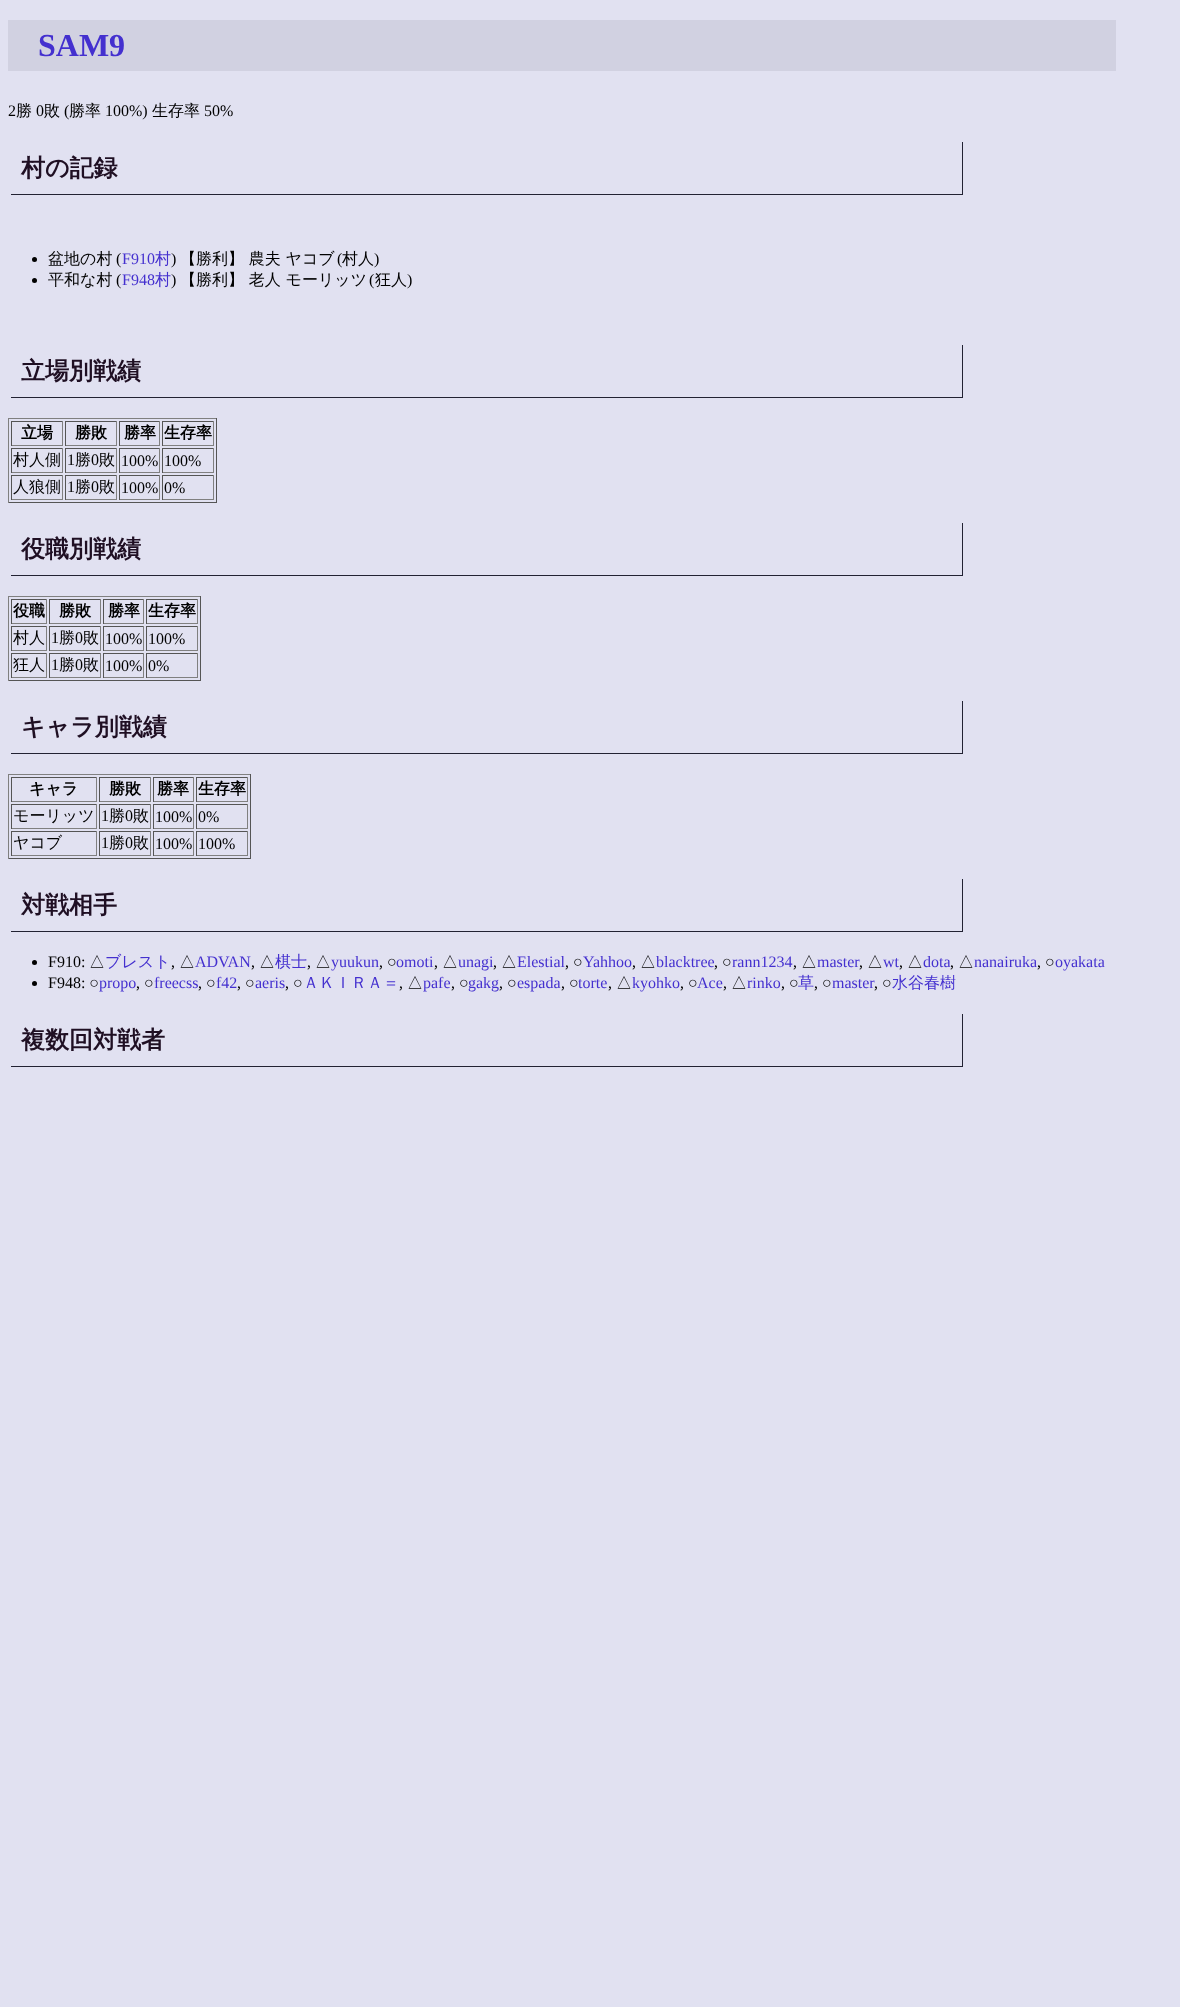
(async () => {
  const canvas = document.querySelector("canvas");
  canvas.width = 1180;
  canvas.height = 2007;
  const ctx = canvas.getContext("2d");
  ctx.miterLimit = 4;
  ctx.fontKerning = "normal";

  ctx.fillStyle = "#e1e1f1";
  ctx.fillRect(0, 0, 1180, 2007);
  for (const [x, y, w, h, color] of [
    [8, 20, 1108, 51, "#d1d1e1"],
    [962, 142, 1, 53, "#222233"],
    [11, 194, 952, 1, "#222233"],
  ]) {
    ctx.fillStyle = color;
    ctx.fillRect(x, y, w, h);
  }
  ctx.fillStyle = "#000000";
  ctx.beginPath();
  ctx.arc(34.5, 259.5, 2.5, 0, Math.PI * 2);
  ctx.fill();
  ctx.beginPath();
  ctx.arc(34.5, 280.5, 2.5, 0, Math.PI * 2);
  ctx.fill();
  for (const [x, y, w, h, color] of [
    [962, 345, 1, 53, "#222233"],
    [11, 397, 952, 1, "#222233"],
    [8, 418, 209, 1, "#808080"],
    [216, 418, 1, 85, "#555555"],
    [8, 502, 209, 1, "#555555"],
    [8, 418, 1, 85, "#808080"],
    [11, 421, 52, 1, "#555555"],
    [62, 421, 1, 25, "#808080"],
    [11, 445, 52, 1, "#808080"],
    [11, 421, 1, 25, "#555555"],
    [65, 421, 52, 1, "#555555"],
    [116, 421, 1, 25, "#808080"],
    [65, 445, 52, 1, "#808080"],
    [65, 421, 1, 25, "#555555"],
    [119, 421, 41, 1, "#555555"],
    [159, 421, 1, 25, "#808080"],
    [119, 445, 41, 1, "#808080"],
    [119, 421, 1, 25, "#555555"],
    [162, 421, 52, 1, "#555555"],
    [213, 421, 1, 25, "#808080"],
    [162, 445, 52, 1, "#808080"],
    [162, 421, 1, 25, "#555555"],
    [11, 448, 52, 1, "#555555"],
    [62, 448, 1, 25, "#808080"],
    [11, 472, 52, 1, "#808080"],
    [11, 448, 1, 25, "#555555"],
    [65, 448, 52, 1, "#555555"],
    [116, 448, 1, 25, "#808080"],
    [65, 472, 52, 1, "#808080"],
    [65, 448, 1, 25, "#555555"],
    [119, 448, 41, 1, "#555555"],
    [159, 448, 1, 25, "#808080"],
    [119, 472, 41, 1, "#808080"],
    [119, 448, 1, 25, "#555555"],
    [162, 448, 52, 1, "#555555"],
    [213, 448, 1, 25, "#808080"],
    [162, 472, 52, 1, "#808080"],
    [162, 448, 1, 25, "#555555"],
    [11, 475, 52, 1, "#555555"],
    [62, 475, 1, 25, "#808080"],
    [11, 499, 52, 1, "#808080"],
    [11, 475, 1, 25, "#555555"],
    [65, 475, 52, 1, "#555555"],
    [116, 475, 1, 25, "#808080"],
    [65, 499, 52, 1, "#808080"],
    [65, 475, 1, 25, "#555555"],
    [119, 475, 41, 1, "#555555"],
    [159, 475, 1, 25, "#808080"],
    [119, 499, 41, 1, "#808080"],
    [119, 475, 1, 25, "#555555"],
    [162, 475, 52, 1, "#555555"],
    [213, 475, 1, 25, "#808080"],
    [162, 499, 52, 1, "#808080"],
    [162, 475, 1, 25, "#555555"],
    [962, 523, 1, 53, "#222233"],
    [11, 575, 952, 1, "#222233"],
    [8, 596, 193, 1, "#808080"],
    [200, 596, 1, 85, "#555555"],
    [8, 680, 193, 1, "#555555"],
    [8, 596, 1, 85, "#808080"],
    [11, 599, 36, 1, "#555555"],
    [46, 599, 1, 25, "#808080"],
    [11, 623, 36, 1, "#808080"],
    [11, 599, 1, 25, "#555555"],
    [49, 599, 52, 1, "#555555"],
    [100, 599, 1, 25, "#808080"],
    [49, 623, 52, 1, "#808080"],
    [49, 599, 1, 25, "#555555"],
    [103, 599, 41, 1, "#555555"],
    [143, 599, 1, 25, "#808080"],
    [103, 623, 41, 1, "#808080"],
    [103, 599, 1, 25, "#555555"],
    [146, 599, 52, 1, "#555555"],
    [197, 599, 1, 25, "#808080"],
    [146, 623, 52, 1, "#808080"],
    [146, 599, 1, 25, "#555555"],
    [11, 626, 36, 1, "#555555"],
    [46, 626, 1, 25, "#808080"],
    [11, 650, 36, 1, "#808080"],
    [11, 626, 1, 25, "#555555"],
    [49, 626, 52, 1, "#555555"],
    [100, 626, 1, 25, "#808080"],
    [49, 650, 52, 1, "#808080"],
    [49, 626, 1, 25, "#555555"],
    [103, 626, 41, 1, "#555555"],
    [143, 626, 1, 25, "#808080"],
    [103, 650, 41, 1, "#808080"],
    [103, 626, 1, 25, "#555555"],
    [146, 626, 52, 1, "#555555"],
    [197, 626, 1, 25, "#808080"],
    [146, 650, 52, 1, "#808080"],
    [146, 626, 1, 25, "#555555"],
    [11, 653, 36, 1, "#555555"],
    [46, 653, 1, 25, "#808080"],
    [11, 677, 36, 1, "#808080"],
    [11, 653, 1, 25, "#555555"],
    [49, 653, 52, 1, "#555555"],
    [100, 653, 1, 25, "#808080"],
    [49, 677, 52, 1, "#808080"],
    [49, 653, 1, 25, "#555555"],
    [103, 653, 41, 1, "#555555"],
    [143, 653, 1, 25, "#808080"],
    [103, 677, 41, 1, "#808080"],
    [103, 653, 1, 25, "#555555"],
    [146, 653, 52, 1, "#555555"],
    [197, 653, 1, 25, "#808080"],
    [146, 677, 52, 1, "#808080"],
    [146, 653, 1, 25, "#555555"],
    [962, 701, 1, 53, "#222233"],
    [11, 753, 952, 1, "#222233"],
    [8, 774, 243, 1, "#808080"],
    [250, 774, 1, 85, "#555555"],
    [8, 858, 243, 1, "#555555"],
    [8, 774, 1, 85, "#808080"],
    [11, 777, 86, 1, "#555555"],
    [96, 777, 1, 25, "#808080"],
    [11, 801, 86, 1, "#808080"],
    [11, 777, 1, 25, "#555555"],
    [99, 777, 52, 1, "#555555"],
    [150, 777, 1, 25, "#808080"],
    [99, 801, 52, 1, "#808080"],
    [99, 777, 1, 25, "#555555"],
    [153, 777, 41, 1, "#555555"],
    [193, 777, 1, 25, "#808080"],
    [153, 801, 41, 1, "#808080"],
    [153, 777, 1, 25, "#555555"],
    [196, 777, 52, 1, "#555555"],
    [247, 777, 1, 25, "#808080"],
    [196, 801, 52, 1, "#808080"],
    [196, 777, 1, 25, "#555555"],
    [11, 804, 86, 1, "#555555"],
    [96, 804, 1, 25, "#808080"],
    [11, 828, 86, 1, "#808080"],
    [11, 804, 1, 25, "#555555"],
    [99, 804, 52, 1, "#555555"],
    [150, 804, 1, 25, "#808080"],
    [99, 828, 52, 1, "#808080"],
    [99, 804, 1, 25, "#555555"],
    [153, 804, 41, 1, "#555555"],
    [193, 804, 1, 25, "#808080"],
    [153, 828, 41, 1, "#808080"],
    [153, 804, 1, 25, "#555555"],
    [196, 804, 52, 1, "#555555"],
    [247, 804, 1, 25, "#808080"],
    [196, 828, 52, 1, "#808080"],
    [196, 804, 1, 25, "#555555"],
    [11, 831, 86, 1, "#555555"],
    [96, 831, 1, 25, "#808080"],
    [11, 855, 86, 1, "#808080"],
    [11, 831, 1, 25, "#555555"],
    [99, 831, 52, 1, "#555555"],
    [150, 831, 1, 25, "#808080"],
    [99, 855, 52, 1, "#808080"],
    [99, 831, 1, 25, "#555555"],
    [153, 831, 41, 1, "#555555"],
    [193, 831, 1, 25, "#808080"],
    [153, 855, 41, 1, "#808080"],
    [153, 831, 1, 25, "#555555"],
    [196, 831, 52, 1, "#555555"],
    [247, 831, 1, 25, "#808080"],
    [196, 855, 52, 1, "#808080"],
    [196, 831, 1, 25, "#555555"],
    [962, 879, 1, 53, "#222233"],
    [11, 931, 952, 1, "#222233"],
  ]) {
    ctx.fillStyle = color;
    ctx.fillRect(x, y, w, h);
  }
  ctx.fillStyle = "#000000";
  ctx.beginPath();
  ctx.arc(34.5, 962.5, 2.5, 0, Math.PI * 2);
  ctx.fill();
  ctx.beginPath();
  ctx.arc(34.5, 983.5, 2.5, 0, Math.PI * 2);
  ctx.fill();
  ctx.fillStyle = "#222233";
  ctx.fillRect(962, 1014, 1, 53);
  ctx.fillRect(11, 1066, 952, 1);
  ctx.font = "bold 32px Liberation Serif";
  ctx.fillStyle = "#4430cf";
  ctx.fillText("SAM9", 38, 56);
  ctx.font = "16px Liberation Serif";
  ctx.fillStyle = "#000000";
  ctx.fillText("2", 8, 116);
  ctx.font = "500 16px WenQuanYi Zen Hei";
  ctx.fillText("勝", 16, 116);
  ctx.font = "16px Liberation Serif";
  ctx.fillText("0", 36, 116);
  ctx.font = "500 16px WenQuanYi Zen Hei";
  ctx.fillText("敗", 44, 116);
  ctx.font = "16px Liberation Serif";
  ctx.fillText("(", 64, 116);
  ctx.font = "500 16px WenQuanYi Zen Hei";
  ctx.fillText("勝率", 69, 116);
  ctx.font = "16px Liberation Serif";
  ctx.fillText("100%)", 105, 116);
  ctx.font = "500 16px WenQuanYi Zen Hei";
  ctx.fillText("生存率", 152, 116);
  ctx.font = "16px Liberation Serif";
  ctx.fillText("50%", 204, 116);
  ctx.font = "bold 24px WenQuanYi Zen Hei";
  ctx.fillStyle = "#1f0f23";
  ctx.fillText("村の記録", 21, 176);
  ctx.font = "500 16px WenQuanYi Zen Hei";
  ctx.fillStyle = "#000000";
  ctx.fillText("盆地の村", 48, 264);
  ctx.font = "16px Liberation Serif";
  ctx.fillText("(", 116, 264);
  ctx.fillStyle = "#4430cf";
  ctx.fillText("F910", 122, 264);
  ctx.font = "500 16px WenQuanYi Zen Hei";
  ctx.fillText("村", 155, 264);
  ctx.font = "16px Liberation Serif";
  ctx.fillStyle = "#000000";
  ctx.fillText(")", 171, 264);
  ctx.font = "500 16px WenQuanYi Zen Hei";
  ctx.fillText("【勝利】 農夫 ヤコブ", 180, 264);
  ctx.font = "16px Liberation Serif";
  ctx.fillText("(", 337, 264);
  ctx.font = "500 16px WenQuanYi Zen Hei";
  ctx.fillText("村人", 342, 264);
  ctx.font = "16px Liberation Serif";
  ctx.fillText(")", 374, 264);
  ctx.font = "500 16px WenQuanYi Zen Hei";
  ctx.fillText("平和な村", 48, 285);
  ctx.font = "16px Liberation Serif";
  ctx.fillText("(", 116, 285);
  ctx.fillStyle = "#4430cf";
  ctx.fillText("F948", 122, 285);
  ctx.font = "500 16px WenQuanYi Zen Hei";
  ctx.fillText("村", 155, 285);
  ctx.font = "16px Liberation Serif";
  ctx.fillStyle = "#000000";
  ctx.fillText(")", 171, 285);
  ctx.font = "500 16px WenQuanYi Zen Hei";
  ctx.fillText("【勝利】 老人 モーリッツ", 180, 285);
  ctx.font = "16px Liberation Serif";
  ctx.fillText("(", 369, 285);
  ctx.font = "500 16px WenQuanYi Zen Hei";
  ctx.fillText("狂人", 375, 285);
  ctx.font = "16px Liberation Serif";
  ctx.fillText(")", 407, 285);
  ctx.font = "bold 24px WenQuanYi Zen Hei";
  ctx.fillStyle = "#1f0f23";
  ctx.fillText("立場別戦績", 21, 379);
  ctx.font = "bold 16px WenQuanYi Zen Hei";
  ctx.fillStyle = "#000000";
  for (const [text, x, y] of [
    ["立場", 21, 438],
    ["勝敗", 75, 438],
    ["勝率", 124, 438],
    ["生存率", 164, 438],
  ]) {
    ctx.fillText(text, x, y);
  }
  ctx.font = "500 16px WenQuanYi Zen Hei";
  ctx.fillText("村人側", 13, 465);
  ctx.font = "16px Liberation Serif";
  ctx.fillText("1", 67, 465);
  ctx.font = "500 16px WenQuanYi Zen Hei";
  ctx.fillText("勝", 75, 465);
  ctx.font = "16px Liberation Serif";
  ctx.fillText("0", 91, 465);
  ctx.font = "500 16px WenQuanYi Zen Hei";
  ctx.fillText("敗", 99, 465);
  ctx.font = "16px Liberation Serif";
  ctx.fillText("100%", 121, 466);
  ctx.fillText("100%", 164, 466);
  ctx.font = "500 16px WenQuanYi Zen Hei";
  ctx.fillText("人狼側", 13, 492);
  ctx.font = "16px Liberation Serif";
  ctx.fillText("1", 67, 492);
  ctx.font = "500 16px WenQuanYi Zen Hei";
  ctx.fillText("勝", 75, 492);
  ctx.font = "16px Liberation Serif";
  ctx.fillText("0", 91, 492);
  ctx.font = "500 16px WenQuanYi Zen Hei";
  ctx.fillText("敗", 99, 492);
  ctx.font = "16px Liberation Serif";
  ctx.fillText("100%", 121, 493);
  ctx.fillText("0%", 164, 493);
  ctx.font = "bold 24px WenQuanYi Zen Hei";
  ctx.fillStyle = "#1f0f23";
  ctx.fillText("役職別戦績", 21, 557);
  ctx.font = "bold 16px WenQuanYi Zen Hei";
  ctx.fillStyle = "#000000";
  for (const [text, x, y] of [
    ["役職", 13, 616],
    ["勝敗", 59, 616],
    ["勝率", 108, 616],
    ["生存率", 148, 616],
  ]) {
    ctx.fillText(text, x, y);
  }
  ctx.font = "500 16px WenQuanYi Zen Hei";
  ctx.fillText("村人", 13, 643);
  ctx.font = "16px Liberation Serif";
  ctx.fillText("1", 51, 643);
  ctx.font = "500 16px WenQuanYi Zen Hei";
  ctx.fillText("勝", 59, 643);
  ctx.font = "16px Liberation Serif";
  ctx.fillText("0", 75, 643);
  ctx.font = "500 16px WenQuanYi Zen Hei";
  ctx.fillText("敗", 83, 643);
  ctx.font = "16px Liberation Serif";
  ctx.fillText("100%", 105, 644);
  ctx.fillText("100%", 148, 644);
  ctx.font = "500 16px WenQuanYi Zen Hei";
  ctx.fillText("狂人", 13, 670);
  ctx.font = "16px Liberation Serif";
  ctx.fillText("1", 51, 670);
  ctx.font = "500 16px WenQuanYi Zen Hei";
  ctx.fillText("勝", 59, 670);
  ctx.font = "16px Liberation Serif";
  ctx.fillText("0", 75, 670);
  ctx.font = "500 16px WenQuanYi Zen Hei";
  ctx.fillText("敗", 83, 670);
  ctx.font = "16px Liberation Serif";
  ctx.fillText("100%", 105, 671);
  ctx.fillText("0%", 148, 671);
  ctx.font = "bold 24px WenQuanYi Zen Hei";
  ctx.fillStyle = "#1f0f23";
  ctx.fillText("キャラ別戦績", 21, 735);
  ctx.font = "bold 16px WenQuanYi Zen Hei";
  ctx.fillStyle = "#000000";
  for (const [text, x, y] of [
    ["キャラ", 29, 794],
    ["勝敗", 109, 794],
    ["勝率", 157, 794],
    ["生存率", 198, 794],
  ]) {
    ctx.fillText(text, x, y);
  }
  ctx.font = "500 16px WenQuanYi Zen Hei";
  ctx.fillText("モーリッツ", 13, 821);
  ctx.font = "16px Liberation Serif";
  ctx.fillText("1", 101, 821);
  ctx.font = "500 16px WenQuanYi Zen Hei";
  ctx.fillText("勝", 109, 821);
  ctx.font = "16px Liberation Serif";
  ctx.fillText("0", 125, 821);
  ctx.font = "500 16px WenQuanYi Zen Hei";
  ctx.fillText("敗", 133, 821);
  ctx.font = "16px Liberation Serif";
  ctx.fillText("100%", 155, 822);
  ctx.fillText("0%", 198, 822);
  ctx.font = "500 16px WenQuanYi Zen Hei";
  ctx.fillText("ヤコブ", 13, 848);
  ctx.font = "16px Liberation Serif";
  ctx.fillText("1", 101, 848);
  ctx.font = "500 16px WenQuanYi Zen Hei";
  ctx.fillText("勝", 109, 848);
  ctx.font = "16px Liberation Serif";
  ctx.fillText("0", 125, 848);
  ctx.font = "500 16px WenQuanYi Zen Hei";
  ctx.fillText("敗", 133, 848);
  ctx.font = "16px Liberation Serif";
  ctx.fillText("100%", 155, 849);
  ctx.fillText("100%", 198, 849);
  ctx.font = "bold 24px WenQuanYi Zen Hei";
  ctx.fillStyle = "#1f0f23";
  ctx.fillText("対戦相手", 21, 913);
  ctx.font = "16px Liberation Serif";
  ctx.fillStyle = "#000000";
  ctx.fillText("F910:", 48, 967);
  ctx.font = "500 16px WenQuanYi Zen Hei";
  ctx.fillText("△", 89, 967);
  ctx.fillStyle = "#4430cf";
  ctx.fillText("ブレスト", 105, 967);
  ctx.fillStyle = "#000000";
  ctx.fillText("△", 179, 967);
  ctx.font = "16px Liberation Serif";
  ctx.fillStyle = "#4430cf";
  ctx.fillText("ADVAN", 195, 967);
  ctx.font = "500 16px WenQuanYi Zen Hei";
  ctx.fillStyle = "#000000";
  ctx.fillText("△", 259, 967);
  ctx.fillStyle = "#4430cf";
  ctx.fillText("棋士", 275, 967);
  ctx.fillStyle = "#000000";
  ctx.fillText("△", 315, 967);
  ctx.font = "16px Liberation Serif";
  ctx.fillStyle = "#4430cf";
  ctx.fillText("yuukun", 331, 967);
  ctx.fillStyle = "#000000";
  ctx.fillText(", ○", 379, 967);
  ctx.fillStyle = "#4430cf";
  ctx.fillText("omoti", 396, 967);
  ctx.font = "500 16px WenQuanYi Zen Hei";
  ctx.fillStyle = "#000000";
  ctx.fillText("△", 442, 967);
  ctx.font = "16px Liberation Serif";
  ctx.fillStyle = "#4430cf";
  ctx.fillText("unagi", 458, 967);
  ctx.font = "500 16px WenQuanYi Zen Hei";
  ctx.fillStyle = "#000000";
  ctx.fillText("△", 501, 967);
  ctx.font = "16px Liberation Serif";
  ctx.fillStyle = "#4430cf";
  ctx.fillText("Elestial", 517, 967);
  ctx.fillStyle = "#000000";
  ctx.fillText(", ○", 565, 967);
  ctx.fillStyle = "#4430cf";
  ctx.fillText("Yahhoo", 583, 967);
  ctx.font = "500 16px WenQuanYi Zen Hei";
  ctx.fillStyle = "#000000";
  ctx.fillText("△", 640, 967);
  ctx.font = "16px Liberation Serif";
  ctx.fillStyle = "#4430cf";
  ctx.fillText("blacktree", 656, 967);
  ctx.fillStyle = "#000000";
  ctx.fillText(", ○", 714, 967);
  ctx.fillStyle = "#4430cf";
  ctx.fillText("rann1234", 732, 967);
  ctx.font = "500 16px WenQuanYi Zen Hei";
  ctx.fillStyle = "#000000";
  ctx.fillText("△", 801, 967);
  ctx.font = "16px Liberation Serif";
  ctx.fillStyle = "#4430cf";
  ctx.fillText("master", 817, 967);
  ctx.font = "500 16px WenQuanYi Zen Hei";
  ctx.fillStyle = "#000000";
  ctx.fillText("△", 867, 967);
  ctx.font = "16px Liberation Serif";
  ctx.fillStyle = "#4430cf";
  ctx.fillText("wt", 883, 967);
  ctx.font = "500 16px WenQuanYi Zen Hei";
  ctx.fillStyle = "#000000";
  ctx.fillText("△", 907, 967);
  ctx.font = "16px Liberation Serif";
  ctx.fillStyle = "#4430cf";
  ctx.fillText("dota", 923, 967);
  ctx.font = "500 16px WenQuanYi Zen Hei";
  ctx.fillStyle = "#000000";
  ctx.fillText("△", 958, 967);
  ctx.font = "16px Liberation Serif";
  ctx.fillStyle = "#4430cf";
  ctx.fillText("nanairuka", 974, 967);
  ctx.fillStyle = "#000000";
  ctx.fillText(", ○", 1037, 967);
  ctx.fillStyle = "#4430cf";
  ctx.fillText("oyakata", 1055, 967);
  ctx.fillStyle = "#000000";
  for (const [text, x, y] of [
    [",", 171, 967],
    [",", 251, 967],
    [",", 307, 967],
    [",", 434, 967],
    [",", 493, 967],
    [",", 632, 967],
    [",", 793, 967],
    [",", 859, 967],
    [",", 899, 967],
    [",", 950, 967],
    ["F948: ○", 48, 988],
  ]) {
    ctx.fillText(text, x, y);
  }
  ctx.fillStyle = "#4430cf";
  ctx.fillText("propo", 99, 988);
  ctx.fillStyle = "#000000";
  ctx.fillText(", ○", 136, 988);
  ctx.fillStyle = "#4430cf";
  ctx.fillText("freecss", 154, 988);
  ctx.fillStyle = "#000000";
  ctx.fillText(", ○", 198, 988);
  ctx.fillStyle = "#4430cf";
  ctx.fillText("f42", 216, 988);
  ctx.fillStyle = "#000000";
  ctx.fillText(", ○", 237, 988);
  ctx.fillStyle = "#4430cf";
  ctx.fillText("aeris", 255, 988);
  ctx.fillStyle = "#000000";
  ctx.fillText(", ○", 285, 988);
  ctx.font = "500 16px WenQuanYi Zen Hei";
  ctx.fillStyle = "#4430cf";
  ctx.fillText("ＡＫＩＲＡ＝", 303, 988);
  ctx.fillStyle = "#000000";
  ctx.fillText("△", 407, 988);
  ctx.font = "16px Liberation Serif";
  ctx.fillStyle = "#4430cf";
  ctx.fillText("pafe", 423, 988);
  ctx.fillStyle = "#000000";
  ctx.fillText(", ○", 451, 988);
  ctx.fillStyle = "#4430cf";
  ctx.fillText("gakg", 468, 988);
  ctx.fillStyle = "#000000";
  ctx.fillText(", ○", 499, 988);
  ctx.fillStyle = "#4430cf";
  ctx.fillText("espada", 517, 988);
  ctx.fillStyle = "#000000";
  ctx.fillText(", ○", 561, 988);
  ctx.fillStyle = "#4430cf";
  ctx.fillText("torte", 578, 988);
  ctx.font = "500 16px WenQuanYi Zen Hei";
  ctx.fillStyle = "#000000";
  ctx.fillText("△", 616, 988);
  ctx.font = "16px Liberation Serif";
  ctx.fillStyle = "#4430cf";
  ctx.fillText("kyohko", 632, 988);
  ctx.fillStyle = "#000000";
  ctx.fillText(", ○", 680, 988);
  ctx.fillStyle = "#4430cf";
  ctx.fillText("Ace", 697, 988);
  ctx.font = "500 16px WenQuanYi Zen Hei";
  ctx.fillStyle = "#000000";
  ctx.fillText("△", 731, 988);
  ctx.font = "16px Liberation Serif";
  ctx.fillStyle = "#4430cf";
  ctx.fillText("rinko", 747, 988);
  ctx.fillStyle = "#000000";
  ctx.fillText(", ○", 781, 988);
  ctx.font = "500 16px WenQuanYi Zen Hei";
  ctx.fillStyle = "#4430cf";
  ctx.fillText("草", 798, 988);
  ctx.font = "16px Liberation Serif";
  ctx.fillStyle = "#000000";
  ctx.fillText(", ○", 814, 988);
  ctx.fillStyle = "#4430cf";
  ctx.fillText("master", 832, 988);
  ctx.fillStyle = "#000000";
  ctx.fillText(", ○", 874, 988);
  ctx.font = "500 16px WenQuanYi Zen Hei";
  ctx.fillStyle = "#4430cf";
  ctx.fillText("水谷春樹", 892, 988);
  ctx.font = "16px Liberation Serif";
  ctx.fillStyle = "#000000";
  for (const [text, x, y] of [
    [",", 399, 988],
    [",", 608, 988],
    [",", 723, 988],
  ]) {
    ctx.fillText(text, x, y);
  }
  ctx.font = "bold 24px WenQuanYi Zen Hei";
  ctx.fillStyle = "#1f0f23";
  ctx.fillText("複数回対戦者", 21, 1048);
})();
